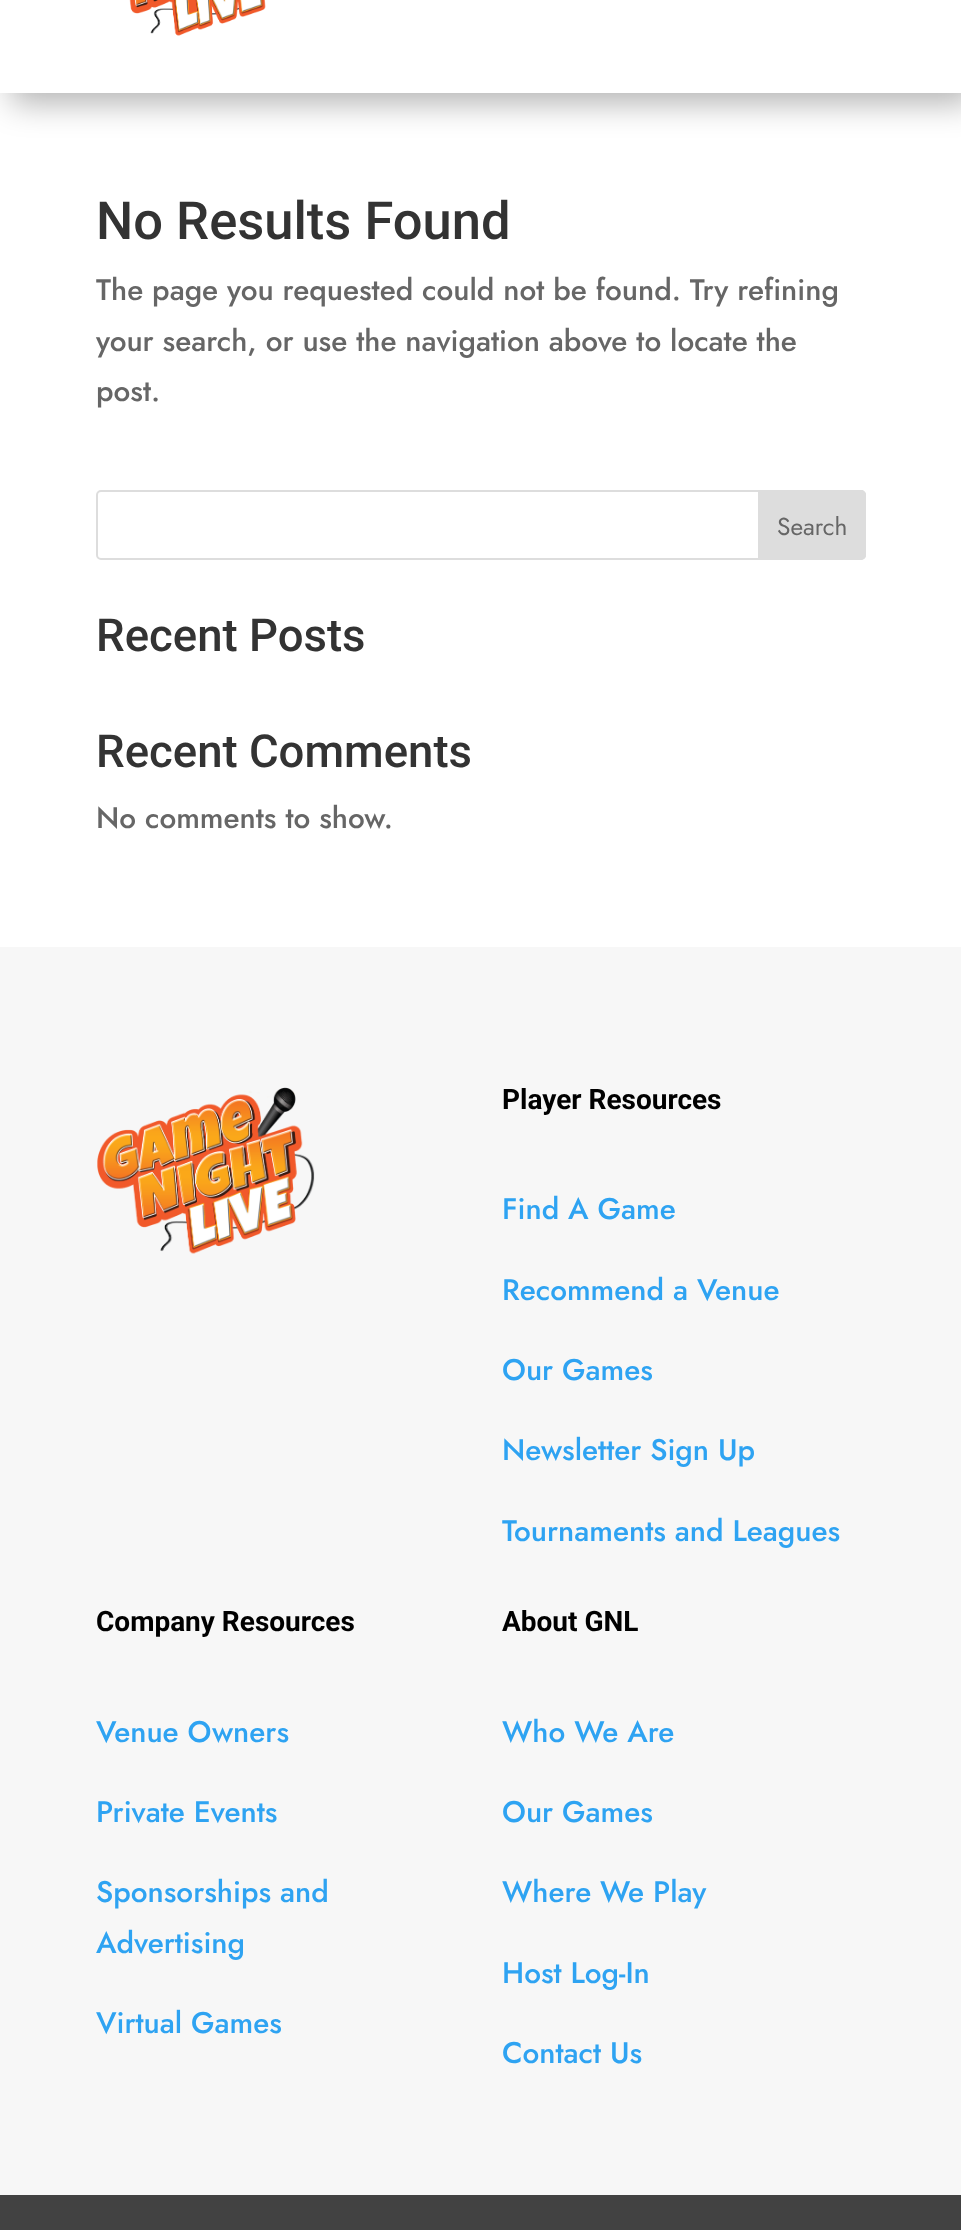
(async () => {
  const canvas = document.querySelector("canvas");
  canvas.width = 961;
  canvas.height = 2230;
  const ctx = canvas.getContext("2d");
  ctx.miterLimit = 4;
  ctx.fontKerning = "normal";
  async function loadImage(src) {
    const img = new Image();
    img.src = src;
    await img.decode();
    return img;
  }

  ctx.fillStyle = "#ffffff";
  ctx.fillRect(0, 0, 961, 2230);
  ctx.fillStyle = "rgba(0, 0, 0, 0.3)";
  ctx.filter = "blur(16px)";
  ctx.beginPath();
  ctx.rect(11, -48, 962, 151);
  ctx.fill();
  ctx.filter = "none";
  ctx.fillStyle = "#ffffff";
  ctx.fillRect(0, 0, 961, 93);
  ctx.drawImage(await loadImage("img/1.png"), 129, 0, 137, 36);
  ctx.beginPath();
  ctx.roundRect(97, 491, 768, 68, 4);
  ctx.strokeStyle = "#dddddd";
  ctx.lineWidth = 2;
  ctx.stroke();
  ctx.fillStyle = "#dddddd";
  ctx.beginPath();
  ctx.roundRect(759, 491, 106, 68, [0, 4, 4, 0]);
  ctx.fill();
  ctx.stroke();
  ctx.fillStyle = "#f7f7f7";
  ctx.fillRect(0, 947, 961, 1248);
  ctx.drawImage(await loadImage("img/2.png"), 97, 1087, 218, 167);
  ctx.fillStyle = "#424242";
  ctx.fillRect(0, 2195, 961, 35);
  ctx.font = "500 52.5px Roboto";
  ctx.fillStyle = "#333333";
  ctx.fillText("No Results Found", 96, 239);
  ctx.font = "500 29.75px Jost";
  ctx.fillStyle = "#666666";
  for (const [text, x, y] of [
    ["The page you requested could not be found. Try refining", 96, 300],
    ["your search, or use the navigation above to locate the", 96, 351],
    ["post.", 96, 401],
  ]) {
    ctx.fillText(text, x, y);
  }
  ctx.font = "24.5px Jost";
  ctx.fillText("Search", 777, 535);
  ctx.font = "500 45.5px Roboto";
  ctx.fillStyle = "#333333";
  ctx.fillText("Recent Posts", 96, 651);
  ctx.fillText("Recent Comments", 96, 767);
  ctx.font = "500 29.75px Jost";
  ctx.fillStyle = "#666666";
  ctx.fillText("No comments to show.", 96, 828);
  ctx.font = "bold 28px Roboto";
  ctx.fillStyle = "#000000";
  ctx.fillText("Player Resources", 502, 1109);
  ctx.font = "500 29.75px Jost";
  ctx.fillStyle = "#2ea3f2";
  for (const [text, x, y] of [
    ["Find A Game", 502, 1219],
    ["Recommend a Venue", 502, 1300],
    ["Our Games", 502, 1380],
    ["Newsletter Sign Up", 502, 1460],
    ["Tournaments and Leagues", 502, 1541],
  ]) {
    ctx.fillText(text, x, y);
  }
  ctx.font = "bold 28px Roboto";
  ctx.fillStyle = "#000000";
  ctx.fillText("Company Resources", 96, 1631);
  ctx.font = "500 29.75px Jost";
  ctx.fillStyle = "#2ea3f2";
  for (const [text, x, y] of [
    ["Venue Owners", 96, 1742],
    ["Private Events", 96, 1822],
    ["Sponsorships and", 96, 1902],
    ["Advertising", 96, 1953],
    ["Virtual Games", 96, 2033],
  ]) {
    ctx.fillText(text, x, y);
  }
  ctx.font = "bold 28px Roboto";
  ctx.fillStyle = "#000000";
  ctx.fillText("About GNL", 502, 1631);
  ctx.font = "500 29.75px Jost";
  ctx.fillStyle = "#2ea3f2";
  for (const [text, x, y] of [
    ["Who We Are", 502, 1742],
    ["Our Games", 502, 1822],
    ["Where We Play", 502, 1902],
    ["Host Log-In", 502, 1983],
    ["Contact Us", 502, 2063],
  ]) {
    ctx.fillText(text, x, y);
  }
})();
